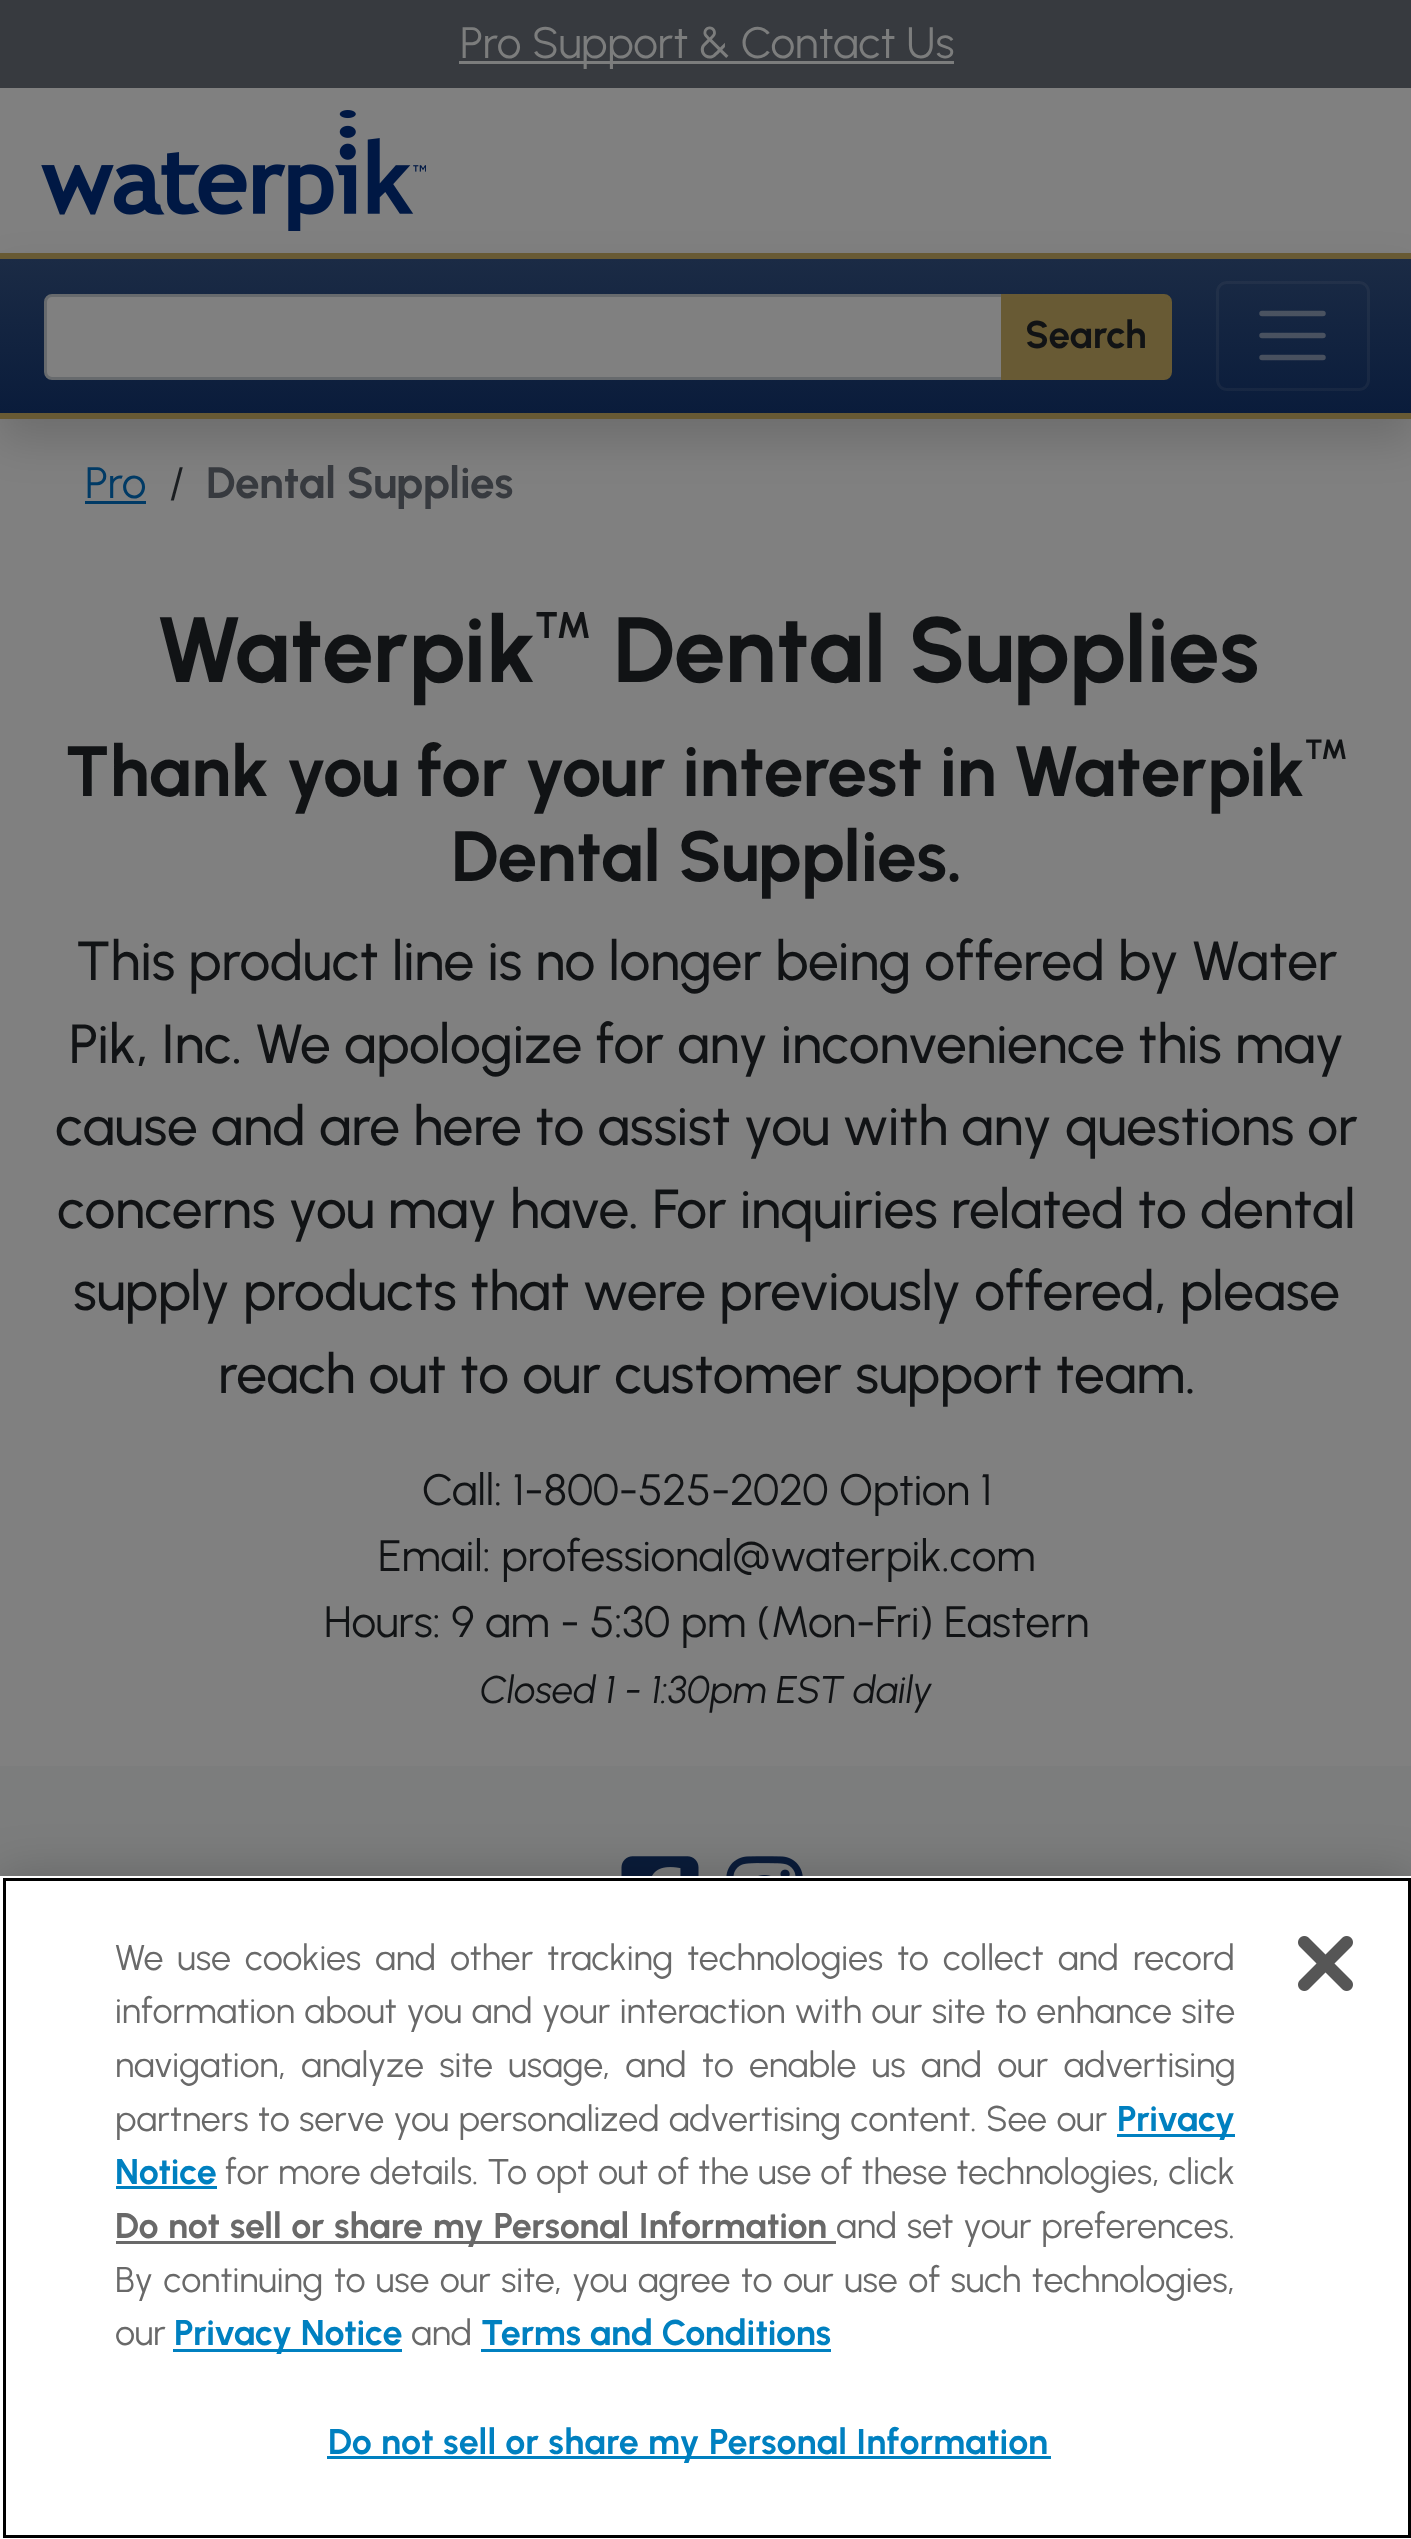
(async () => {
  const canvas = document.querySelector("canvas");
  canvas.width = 1411;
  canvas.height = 2539;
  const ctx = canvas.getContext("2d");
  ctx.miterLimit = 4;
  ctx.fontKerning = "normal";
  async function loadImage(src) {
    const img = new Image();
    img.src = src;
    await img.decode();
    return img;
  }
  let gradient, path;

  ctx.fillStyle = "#808080";
  ctx.fillRect(0, 0, 1411, 2539);
  ctx.fillStyle = "#373a3f";
  ctx.fillRect(0, 0, 1411, 88);
  ctx.fillStyle = "#7c7d7d";
  ctx.fillRect(459, 61, 495, 3);
  ctx.drawImage(await loadImage("img/1.png"), 41, 110, 385, 121);
  ctx.fillStyle = "#003a65";
  ctx.fillRect(85, 501, 61, 3);
  ctx.fillStyle = "rgba(0, 0, 0, 0.15)";
  ctx.filter = "blur(22px)";
  ctx.beginPath();
  ctx.rect(0, 275, 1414, 165);
  ctx.fill();
  ctx.filter = "none";
  gradient = ctx.createLinearGradient(707, 258, 707, 413);
  gradient.addColorStop(0, "#1b2b45");
  gradient.addColorStop(1, "#0a1c3b");
  ctx.fillStyle = gradient;
  ctx.fillRect(0, 259, 1411, 154);
  ctx.fillStyle = "#685a34";
  ctx.fillRect(0, 253, 1411, 6);
  ctx.fillRect(0, 413, 1411, 6);
  ctx.fillStyle = "#808080";
  ctx.beginPath();
  ctx.roundRect(45.5, 295.5, 957, 83, [6.5, 0, 0, 6.5]);
  ctx.fill();
  ctx.strokeStyle = "#676a6d";
  ctx.lineWidth = 3;
  ctx.stroke();
  ctx.fillStyle = "#685a34";
  ctx.beginPath();
  ctx.roundRect(1002.5, 295.5, 168, 83, [0, 6.5, 6.5, 0]);
  ctx.fill();
  ctx.strokeStyle = "#685a34";
  ctx.stroke();
  ctx.beginPath();
  ctx.roundRect(1217.5, 282.5, 151, 107, 9.5);
  ctx.strokeStyle = "rgba(128, 128, 128, 0.1)";
  ctx.stroke();
  path = new Path2D("M1262 313.5H1323M1262 335.5H1323M1262 357.5H1323");
  ctx.strokeStyle = "rgba(128, 128, 128, 0.5)";
  ctx.lineWidth = 5.5;
  ctx.lineCap = "round";
  ctx.stroke(path);
  ctx.fillStyle = "#7c7d7d";
  ctx.fillRect(0, 1766, 1411, 110);
  ctx.drawImage(await loadImage("img/2.png"), 621, 1856, 78, 20);
  ctx.drawImage(await loadImage("img/3.png"), 726, 1856, 77, 20);
  ctx.fillStyle = "rgba(0, 0, 0, 0.2)";
  ctx.filter = "blur(25px)";
  ctx.beginPath();
  ctx.rect(0, 1876, 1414, 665);
  ctx.fill();
  ctx.filter = "none";
  ctx.fillStyle = "#ffffff";
  ctx.fillRect(0, 1876, 1411, 663);
  ctx.strokeStyle = "#000000";
  ctx.lineWidth = 3;
  ctx.strokeRect(4.5, 1879.5, 1405, 657);
  for (const [x, y, w, h, color] of [
    [1117, 2134, 118, 3, "#0080c0"],
    [116, 2186, 101, 3, "#0080c0"],
    [116, 2241, 720, 3, "#696969"],
    [173, 2349, 229, 3, "#0080c0"],
    [481, 2349, 350, 3, "#0080c0"],
    [327, 2456, 724, 3, "#0080c0"],
  ]) {
    ctx.fillStyle = color;
    ctx.fillRect(x, y, w, h);
  }
  ctx.drawImage(await loadImage("img/4.png"), 1298, 1936, 55, 55);
  ctx.font = "44px Urbanist";
  ctx.fillStyle = "#7c7d7d";
  ctx.fillText("Pro Support & Contact Us", 460, 58);
  ctx.font = "bold 38.5px Urbanist";
  ctx.fillStyle = "#111315";
  ctx.fillText("Search", 1025, 348);
  ctx.font = "44px Urbanist";
  ctx.fillStyle = "#003a65";
  ctx.fillText("Pro", 85, 498);
  ctx.fillStyle = "#1a1d20";
  ctx.fillText("/", 169, 498);
  ctx.font = "bold 44px Urbanist";
  ctx.fillStyle = "#373a3f";
  ctx.fillText("Dental Supplies", 206, 498);
  ctx.font = "bold 92.5px Urbanist";
  ctx.fillStyle = "#111315";
  ctx.fillText("Waterpik", 156, 682);
  ctx.font = "bold 37px Urbanist";
  ctx.fillText("™", 535, 638);
  ctx.font = "bold 92.5px Urbanist";
  ctx.fillText("Dental Supplies", 613, 682);
  ctx.font = "bold 71px Urbanist";
  ctx.fillText("Thank you for your interest in Waterpik", 65, 796);
  ctx.font = "bold 28px Urbanist";
  ctx.fillText("™", 1305, 759);
  ctx.font = "bold 71px Urbanist";
  ctx.fillText("Dental Supplies.", 451, 881);
  ctx.font = "500 55px Urbanist";
  for (const [text, x, y] of [
    ["This product line is no longer being offered by Water", 76, 980],
    ["Pik, Inc. We apologize for any inconvenience this may", 69, 1063],
    ["cause and are here to assist you with any questions or", 55, 1145],
    ["concerns you may have. For inquiries related to dental", 57, 1228],
    ["supply products that were previously offered, please", 73, 1310],
    ["reach out to our customer support team.", 218, 1393],
  ]) {
    ctx.fillText(text, x, y);
  }
  ctx.font = "44px Urbanist";
  for (const [text, x, y] of [
    ["Call: 1-800-525-2020 Option 1", 422, 1505],
    ["Email: professional@waterpik.com", 378, 1571],
    ["Hours: 9 am - 5:30 pm (Mon-Fri) Eastern", 324, 1637],
  ]) {
    ctx.fillText(text, x, y);
  }
  ctx.font = "italic 38.5px Urbanist";
  ctx.fillText("Closed 1 - 1:30pm EST daily", 480, 1703);
  ctx.wordSpacing = "5.25px";
  ctx.font = "35.75px Urbanist";
  ctx.fillStyle = "#696969";
  ctx.fillText("We use cookies and other tracking technologies to collect and record", 115, 1970);
  ctx.wordSpacing = "0.9px";
  ctx.fillText("information about you and your interaction with our site to enhance site", 115, 2023);
  ctx.wordSpacing = "6.75px";
  ctx.fillText("navigation, analyze site usage, and to enable us and our advertising", 115, 2077);
  ctx.wordSpacing = "0.75px";
  ctx.fillText("partners to serve you personalized advertising content. See our", 115, 2131);
  ctx.wordSpacing = "0px";
  ctx.font = "bold 35.75px Urbanist";
  ctx.fillStyle = "#0080c0";
  ctx.fillText("Privacy", 1117, 2131);
  ctx.fillText("Notice", 115, 2184);
  ctx.wordSpacing = "0.25px";
  ctx.font = "35.75px Urbanist";
  ctx.fillStyle = "#696969";
  ctx.fillText("for more details. To opt out of the use of these technologies, click", 225, 2184);
  ctx.wordSpacing = "1px";
  ctx.font = "bold 35.75px Urbanist";
  ctx.fillText("Do not sell or share my Personal Information", 115, 2238);
  ctx.font = "35.75px Urbanist";
  ctx.fillText("and set your preferences.", 836, 2238);
  ctx.wordSpacing = "1.75px";
  ctx.fillText("By continuing to use our site, you agree to our use of such technologies,", 115, 2292);
  ctx.save();
  ctx.beginPath();
  ctx.rect(116, 1931, 1119, 429);
  ctx.clip();
  ctx.wordSpacing = "0px";
  ctx.fillText("our", 115, 2345);
  ctx.restore();
  ctx.wordSpacing = "0px";
  ctx.font = "bold 35.75px Urbanist";
  ctx.fillStyle = "#0080c0";
  ctx.fillText("Privacy Notice", 174, 2345);
  ctx.font = "35.75px Urbanist";
  ctx.fillStyle = "#696969";
  ctx.fillText("and", 411, 2345);
  ctx.font = "bold 35.75px Urbanist";
  ctx.fillStyle = "#0080c0";
  ctx.fillText("Terms and Conditions", 481, 2345);
  ctx.letterSpacing = "0.35px";
  ctx.fillText("Do not sell or share my Personal Information", 328, 2454);
})();
